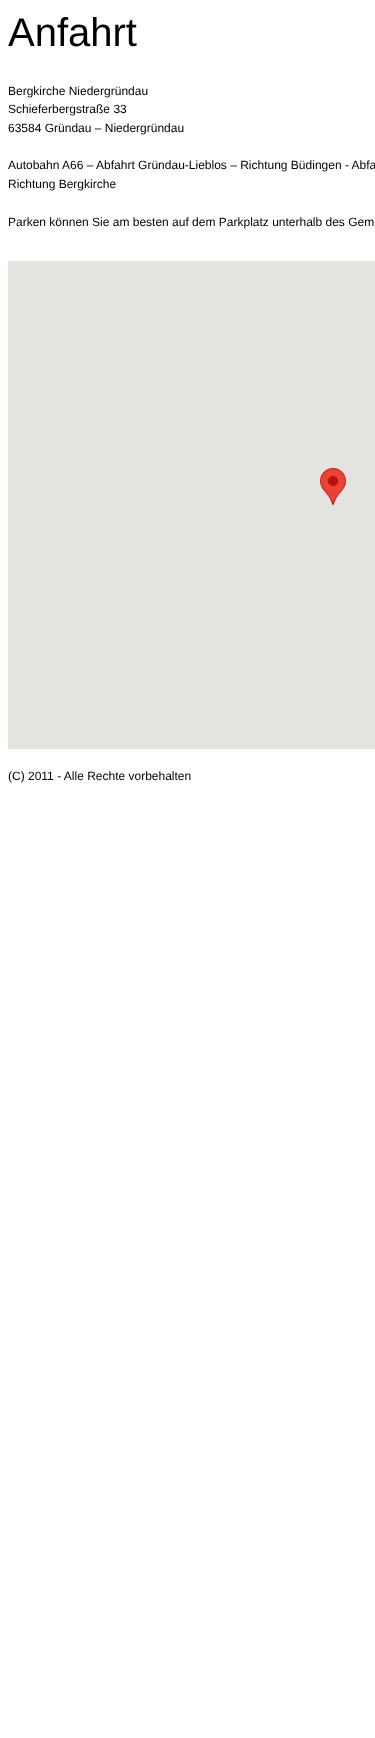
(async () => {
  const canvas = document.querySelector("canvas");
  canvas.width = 375;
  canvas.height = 1738;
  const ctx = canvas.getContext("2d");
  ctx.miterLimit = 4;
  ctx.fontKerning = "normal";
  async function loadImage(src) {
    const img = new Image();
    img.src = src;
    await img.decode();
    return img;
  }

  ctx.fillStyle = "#ffffff";
  ctx.fillRect(0, 0, 375, 1738);
  ctx.fillStyle = "#e5e3df";
  ctx.fillRect(8, 261, 367, 488);
  ctx.drawImage(await loadImage("img/1.png"), 320, 468, 26, 37);
  ctx.font = "40px Liberation Sans";
  ctx.fillStyle = "#000000";
  ctx.fillText("Anfahrt", 8, 46);
  ctx.font = "12px Liberation Sans";
  for (const [text, x, y] of [
    ["Bergkirche Niedergründau", 8, 95],
    ["Schieferbergstraße 33", 8, 113],
    ["63584 Gründau – Niedergründau", 8, 132],
    ["Autobahn A66 – Abfahrt Gründau-Lieblos – Richtung Büdingen - Abfa", 8, 169],
    ["Richtung Bergkirche", 8, 188],
    ["Parken können Sie am besten auf dem Parkplatz unterhalb des Gem", 8, 226],
    ["(C) 2011 - Alle Rechte vorbehalten", 8, 780],
  ]) {
    ctx.fillText(text, x, y);
  }
})();
